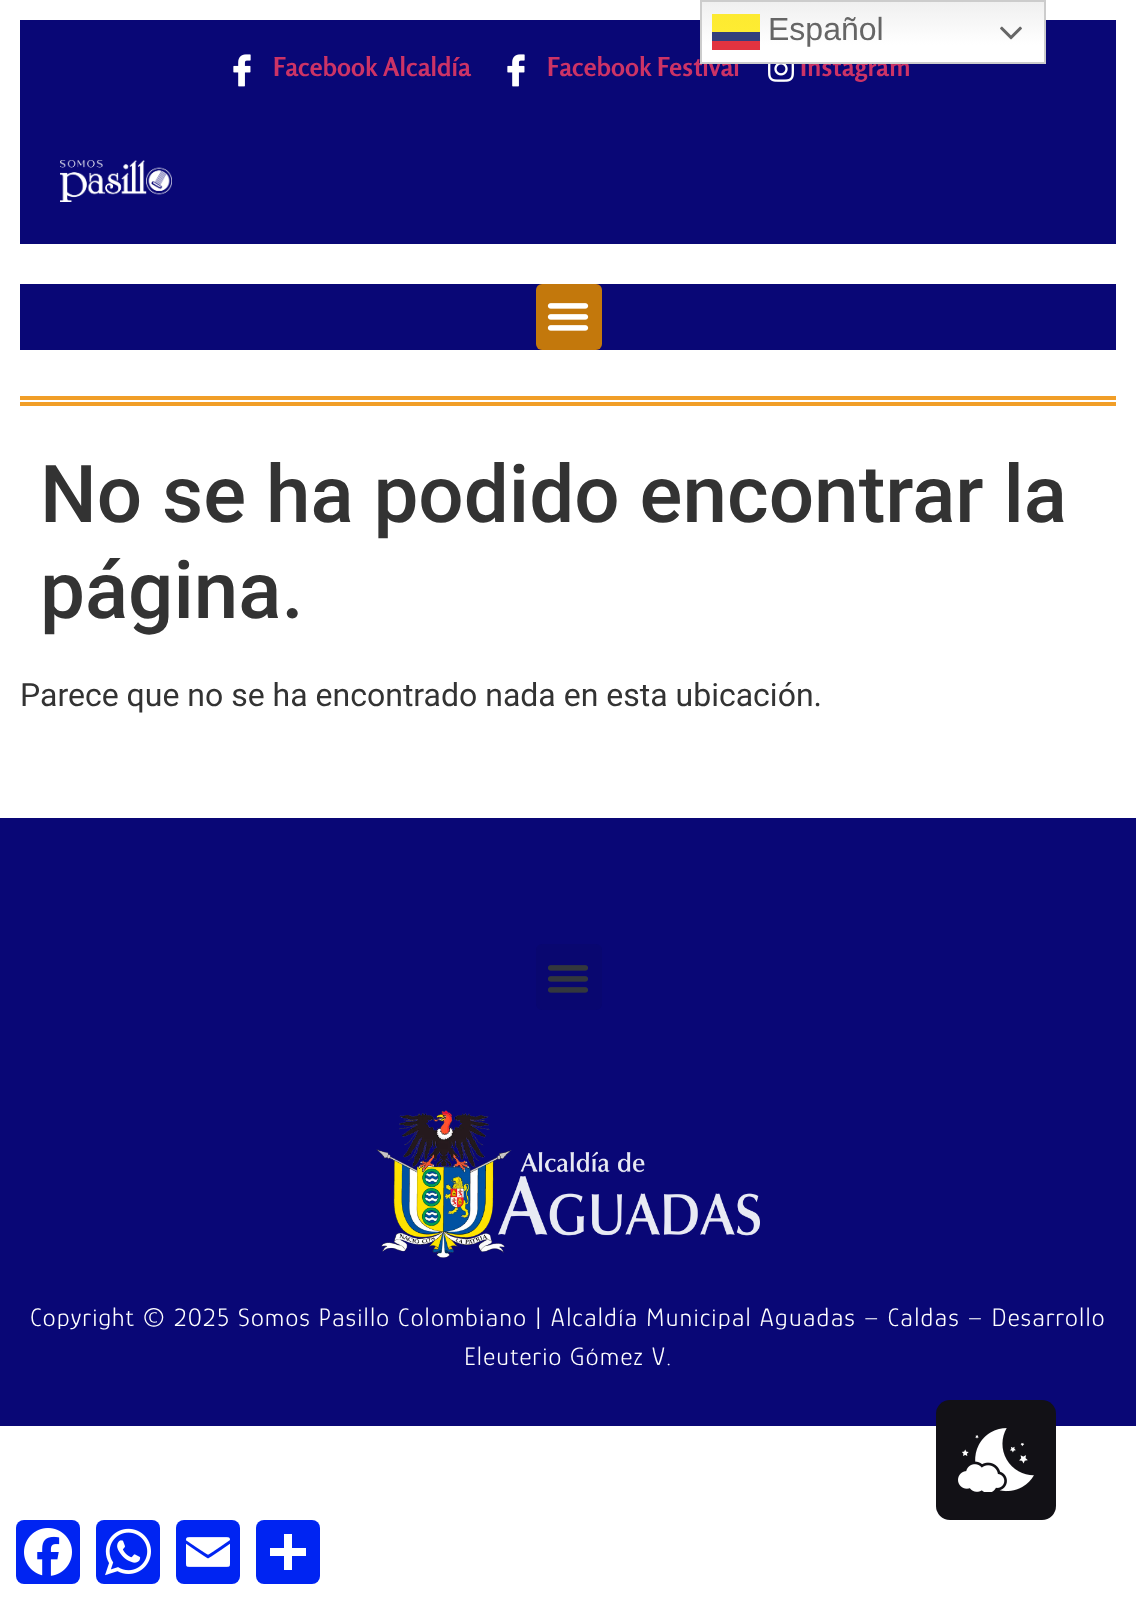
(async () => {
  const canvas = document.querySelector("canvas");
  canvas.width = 1136;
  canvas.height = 1599;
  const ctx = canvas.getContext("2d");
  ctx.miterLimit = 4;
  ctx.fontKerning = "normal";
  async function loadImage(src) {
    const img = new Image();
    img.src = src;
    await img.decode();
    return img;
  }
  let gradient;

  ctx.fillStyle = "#ffffff";
  ctx.fillRect(0, 0, 1136, 1599);
  ctx.fillStyle = "#090776";
  ctx.fillRect(20, 20, 1096, 224);
  ctx.drawImage(await loadImage("img/2.png"), 233, 54, 18, 33);
  ctx.drawImage(await loadImage("img/2.png"), 507, 54, 18, 33);
  ctx.drawImage(await loadImage("img/3.png"), 768, 64, 26, 18);
  ctx.drawImage(await loadImage("img/4.png"), 60, 160, 112, 42);
  ctx.fillRect(20, 284, 1096, 66);
  ctx.fillStyle = "#c3780c";
  ctx.beginPath();
  ctx.roundRect(536, 284, 66, 66, 6);
  ctx.fill();
  ctx.drawImage(await loadImage("img/5.png"), 547, 303, 42, 28);
  for (const [x, y, w, h, color] of [
    [20, 396, 1096, 4, "#f19e27"],
    [20, 402, 1096, 4, "#f19e27"],
    [0, 818, 1136, 608, "#090776"],
  ]) {
    ctx.fillStyle = color;
    ctx.fillRect(x, y, w, h);
  }
  ctx.fillStyle = "#090770";
  ctx.beginPath();
  ctx.roundRect(536, 944, 66, 66, 6);
  ctx.fill();
  ctx.drawImage(await loadImage("img/6.png"), 548, 965, 40, 28);
  ctx.drawImage(await loadImage("img/7.png"), 376, 1110, 384, 148);
  ctx.fillStyle = "#121116";
  ctx.beginPath();
  ctx.roundRect(936, 1400, 120, 120, 14);
  ctx.fill();
  ctx.drawImage(await loadImage("img/8.png"), 958, 1428, 76, 64);
  ctx.fillStyle = "#0024f2";
  ctx.beginPath();
  ctx.roundRect(16, 1520, 64, 64, 8);
  ctx.fill();
  ctx.drawImage(await loadImage("img/9.png"), 24, 1528, 48, 48);
  ctx.beginPath();
  ctx.roundRect(96, 1520, 64, 64, 8);
  ctx.fill();
  ctx.drawImage(await loadImage("img/10.png"), 105, 1528, 46, 48);
  ctx.beginPath();
  ctx.roundRect(176, 1520, 64, 64, 8);
  ctx.fill();
  ctx.drawImage(await loadImage("img/11.png"), 186, 1537, 44, 30);
  ctx.beginPath();
  ctx.roundRect(256, 1520, 64, 64, 8);
  ctx.fill();
  ctx.fillStyle = "#ffffff";
  ctx.fillRect(284, 1534, 8, 36);
  ctx.fillRect(270, 1548, 36, 8);
  ctx.font = "bold 26px Rosario";
  ctx.fillStyle = "#cc3366";
  for (const [text, x, y] of [
    ["Facebook Alcaldía", 273, 76],
    ["Facebook Festival", 547, 76],
    ["Instagram", 800, 76],
  ]) {
    ctx.fillText(text, x, y);
  }
  gradient = ctx.createLinearGradient(873, 0, 873, 64);
  gradient.addColorStop(0, "#efefef");
  gradient.addColorStop(0.7, "#ffffff");
  ctx.fillStyle = gradient;
  ctx.fillRect(702, 2, 342, 60);
  gradient = ctx.createLinearGradient(873, 0, 873, 64);
  gradient.addColorStop(0, "#fce930");
  gradient.addColorStop(0.7, "#ffed33");
  ctx.fillStyle = gradient;
  ctx.fillRect(712, 14, 48, 18);
  ctx.strokeStyle = "#cccccc";
  ctx.lineWidth = 2;
  ctx.strokeRect(701, 1, 344, 62);
  ctx.drawImage(await loadImage("img/1.png"), 1000, 26, 22, 14);
  ctx.fillStyle = "#e13340";
  ctx.fillRect(712, 41, 48, 9);
  ctx.fillStyle = "#333f7c";
  ctx.fillRect(712, 32, 48, 9);
  ctx.font = "32px Liberation Sans";
  ctx.fillStyle = "#666666";
  ctx.fillText("Español", 768, 40);
  ctx.font = "500 80px Roboto";
  ctx.fillStyle = "#333333";
  ctx.fillText("No se ha podido encontrar la", 40, 522);
  ctx.fillText("página.", 40, 618);
  ctx.font = "32px Roboto";
  ctx.fillText("Parece que no se ha encontrado nada en esta ubicación.", 20, 706);
  ctx.letterSpacing = "1.2px";
  ctx.font = "300 26px Glory";
  ctx.fillStyle = "#ffffff";
  ctx.fillText("Copyright © 2025 Somos Pasillo Colombiano | Alcaldía Municipal Aguadas – Caldas – Desarrollo", 30, 1326);
  ctx.fillText("Eleuterio Gómez V.", 464, 1365);
})();
